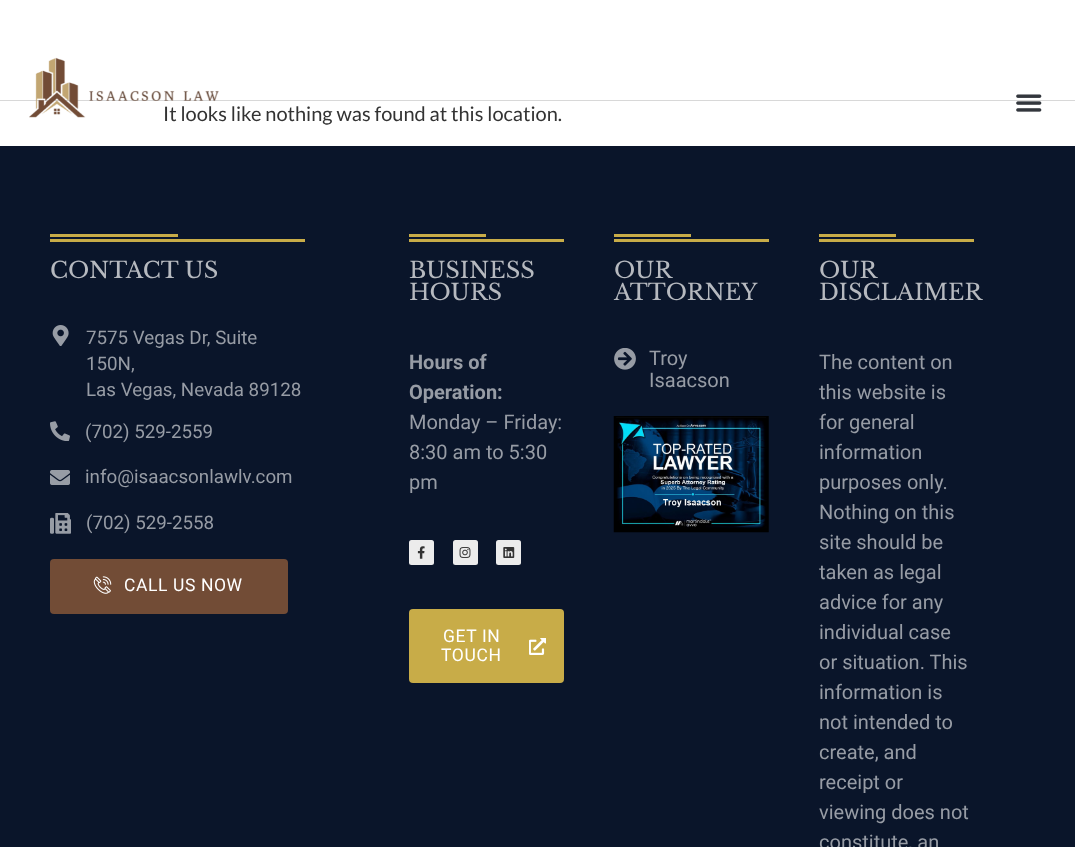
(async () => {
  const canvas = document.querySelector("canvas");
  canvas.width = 1075;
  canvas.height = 847;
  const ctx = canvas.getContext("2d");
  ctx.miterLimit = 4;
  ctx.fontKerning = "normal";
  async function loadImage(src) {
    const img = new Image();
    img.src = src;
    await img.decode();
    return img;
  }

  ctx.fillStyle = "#ffffff";
  ctx.fillRect(0, 0, 1075, 847);
  ctx.fillStyle = "#d8d8d8";
  ctx.fillRect(0, 100, 1075, 1);
  ctx.drawImage(await loadImage("img/2.png"), 1016, 94, 26, 18);
  for (const [x, y, w, h, color] of [
    [0, 146, 1075, 701, "#0a152a"],
    [50, 234, 128, 3, "#c8ac48"],
    [50, 239, 255, 3, "#c8ac48"],
  ]) {
    ctx.fillStyle = color;
    ctx.fillRect(x, y, w, h);
  }
  ctx.drawImage(await loadImage("img/3.png"), 52, 325, 17, 21);
  ctx.drawImage(await loadImage("img/4.png"), 50, 421, 20, 20);
  ctx.drawImage(await loadImage("img/5.png"), 50, 470, 20, 15);
  ctx.drawImage(await loadImage("img/6.png"), 50, 513, 21, 21);
  ctx.fillStyle = "#724c36";
  ctx.beginPath();
  ctx.roundRect(50, 559, 238, 55, 4);
  ctx.fill();
  ctx.drawImage(await loadImage("img/7.png"), 93, 576, 19, 18);
  ctx.fillStyle = "#c8ac48";
  ctx.fillRect(409, 234, 77, 3);
  ctx.fillRect(409, 239, 155, 3);
  ctx.fillStyle = "#ececec";
  ctx.beginPath();
  ctx.roundRect(409, 540, 25, 25, 2.5);
  ctx.fill();
  ctx.drawImage(await loadImage("img/8.png"), 417, 546, 8, 13);
  ctx.beginPath();
  ctx.roundRect(453, 540, 25, 25, 2.5);
  ctx.fill();
  ctx.drawImage(await loadImage("img/9.png"), 459, 547, 12, 11);
  ctx.beginPath();
  ctx.roundRect(496, 540, 25, 25, 2.5);
  ctx.fill();
  ctx.drawImage(await loadImage("img/10.png"), 503, 547, 12, 11);
  ctx.fillStyle = "#c8ac48";
  ctx.beginPath();
  ctx.roundRect(409, 609, 155, 74, 4);
  ctx.fill();
  ctx.drawImage(await loadImage("img/11.png"), 529, 638, 17, 17);
  ctx.fillRect(614, 234, 77, 3);
  ctx.fillRect(614, 239, 155, 3);
  ctx.drawImage(await loadImage("img/12.png"), 614, 348, 22, 22);
  ctx.drawImage(await loadImage("img/13.png"), 613, 416, 156, 117);
  ctx.fillRect(819, 234, 77, 3);
  ctx.fillRect(819, 239, 155, 3);
  ctx.font = "20px Lato";
  ctx.fillStyle = "#333333";
  ctx.fillText("It looks like nothing was found at this location.", 163, 121);
  ctx.drawImage(await loadImage("img/1.png"), 29, 57, 190, 61);
  ctx.font = "22.5px Libre Baskerville";
  ctx.fillStyle = "#b6b9bf";
  ctx.fillText("CONTACT US", 50, 278);
  ctx.font = "18.75px Roboto";
  ctx.fillStyle = "#979ca5";
  for (const [text, x, y] of [
    ["7575 Vegas Dr, Suite", 86, 344],
    ["150N,", 86, 370],
    ["Las Vegas, Nevada 89128", 86, 396],
    ["(702) 529-2559", 85, 438],
    ["info@isaacsonlawlv.com", 85, 483],
    ["(702) 529-2558", 86, 529],
  ]) {
    ctx.fillText(text, x, y);
  }
  ctx.letterSpacing = "0.6px";
  ctx.font = "17.5px Roboto";
  ctx.fillStyle = "#ffffff";
  ctx.fillText("CALL US NOW", 124, 591);
  ctx.letterSpacing = "0px";
  ctx.font = "22.5px Libre Baskerville";
  ctx.fillStyle = "#b6b9bf";
  ctx.fillText("BUSINESS", 409, 278);
  ctx.fillText("HOURS", 409, 300);
  ctx.font = "bold 20px Roboto";
  ctx.fillStyle = "#979ca5";
  ctx.fillText("Hours of", 409, 369);
  ctx.fillText("Operation:", 409, 399);
  ctx.font = "20px Roboto";
  for (const [text, x, y] of [
    ["Monday – Friday:", 409, 429],
    ["8:30 am to 5:30", 409, 459],
    ["pm", 409, 489],
  ]) {
    ctx.fillText(text, x, y);
  }
  ctx.letterSpacing = "0.6px";
  ctx.font = "17.5px Roboto";
  ctx.fillStyle = "#ffffff";
  ctx.fillText("GET IN", 443, 642);
  ctx.fillText("TOUCH", 441, 661);
  ctx.letterSpacing = "0px";
  ctx.font = "22.5px Libre Baskerville";
  ctx.fillStyle = "#b6b9bf";
  ctx.fillText("OUR", 614, 278);
  ctx.fillText("ATTORNEY", 614, 300);
  ctx.font = "20px Roboto";
  ctx.fillStyle = "#979ca5";
  ctx.fillText("Troy", 649, 365);
  ctx.fillText("Isaacson", 649, 387);
  ctx.font = "22.5px Libre Baskerville";
  ctx.fillStyle = "#b6b9bf";
  ctx.fillText("OUR", 819, 278);
  ctx.fillText("DISCLAIMER", 819, 300);
  ctx.font = "20px Roboto";
  ctx.fillStyle = "#979ca5";
  for (const [text, x, y] of [
    ["The content on", 819, 369],
    ["this website is", 819, 399],
    ["for general", 819, 429],
    ["information", 819, 459],
    ["purposes only.", 819, 489],
    ["Nothing on this", 819, 519],
    ["site should be", 819, 549],
    ["taken as legal", 819, 579],
    ["advice for any", 819, 609],
    ["individual case", 819, 639],
    ["or situation. This", 819, 669],
    ["information is", 819, 699],
    ["not intended to", 819, 729],
    ["create, and", 819, 759],
    ["receipt or", 819, 789],
    ["viewing does not", 819, 819],
    ["constitute, an", 819, 849],
  ]) {
    ctx.fillText(text, x, y);
  }
})();
